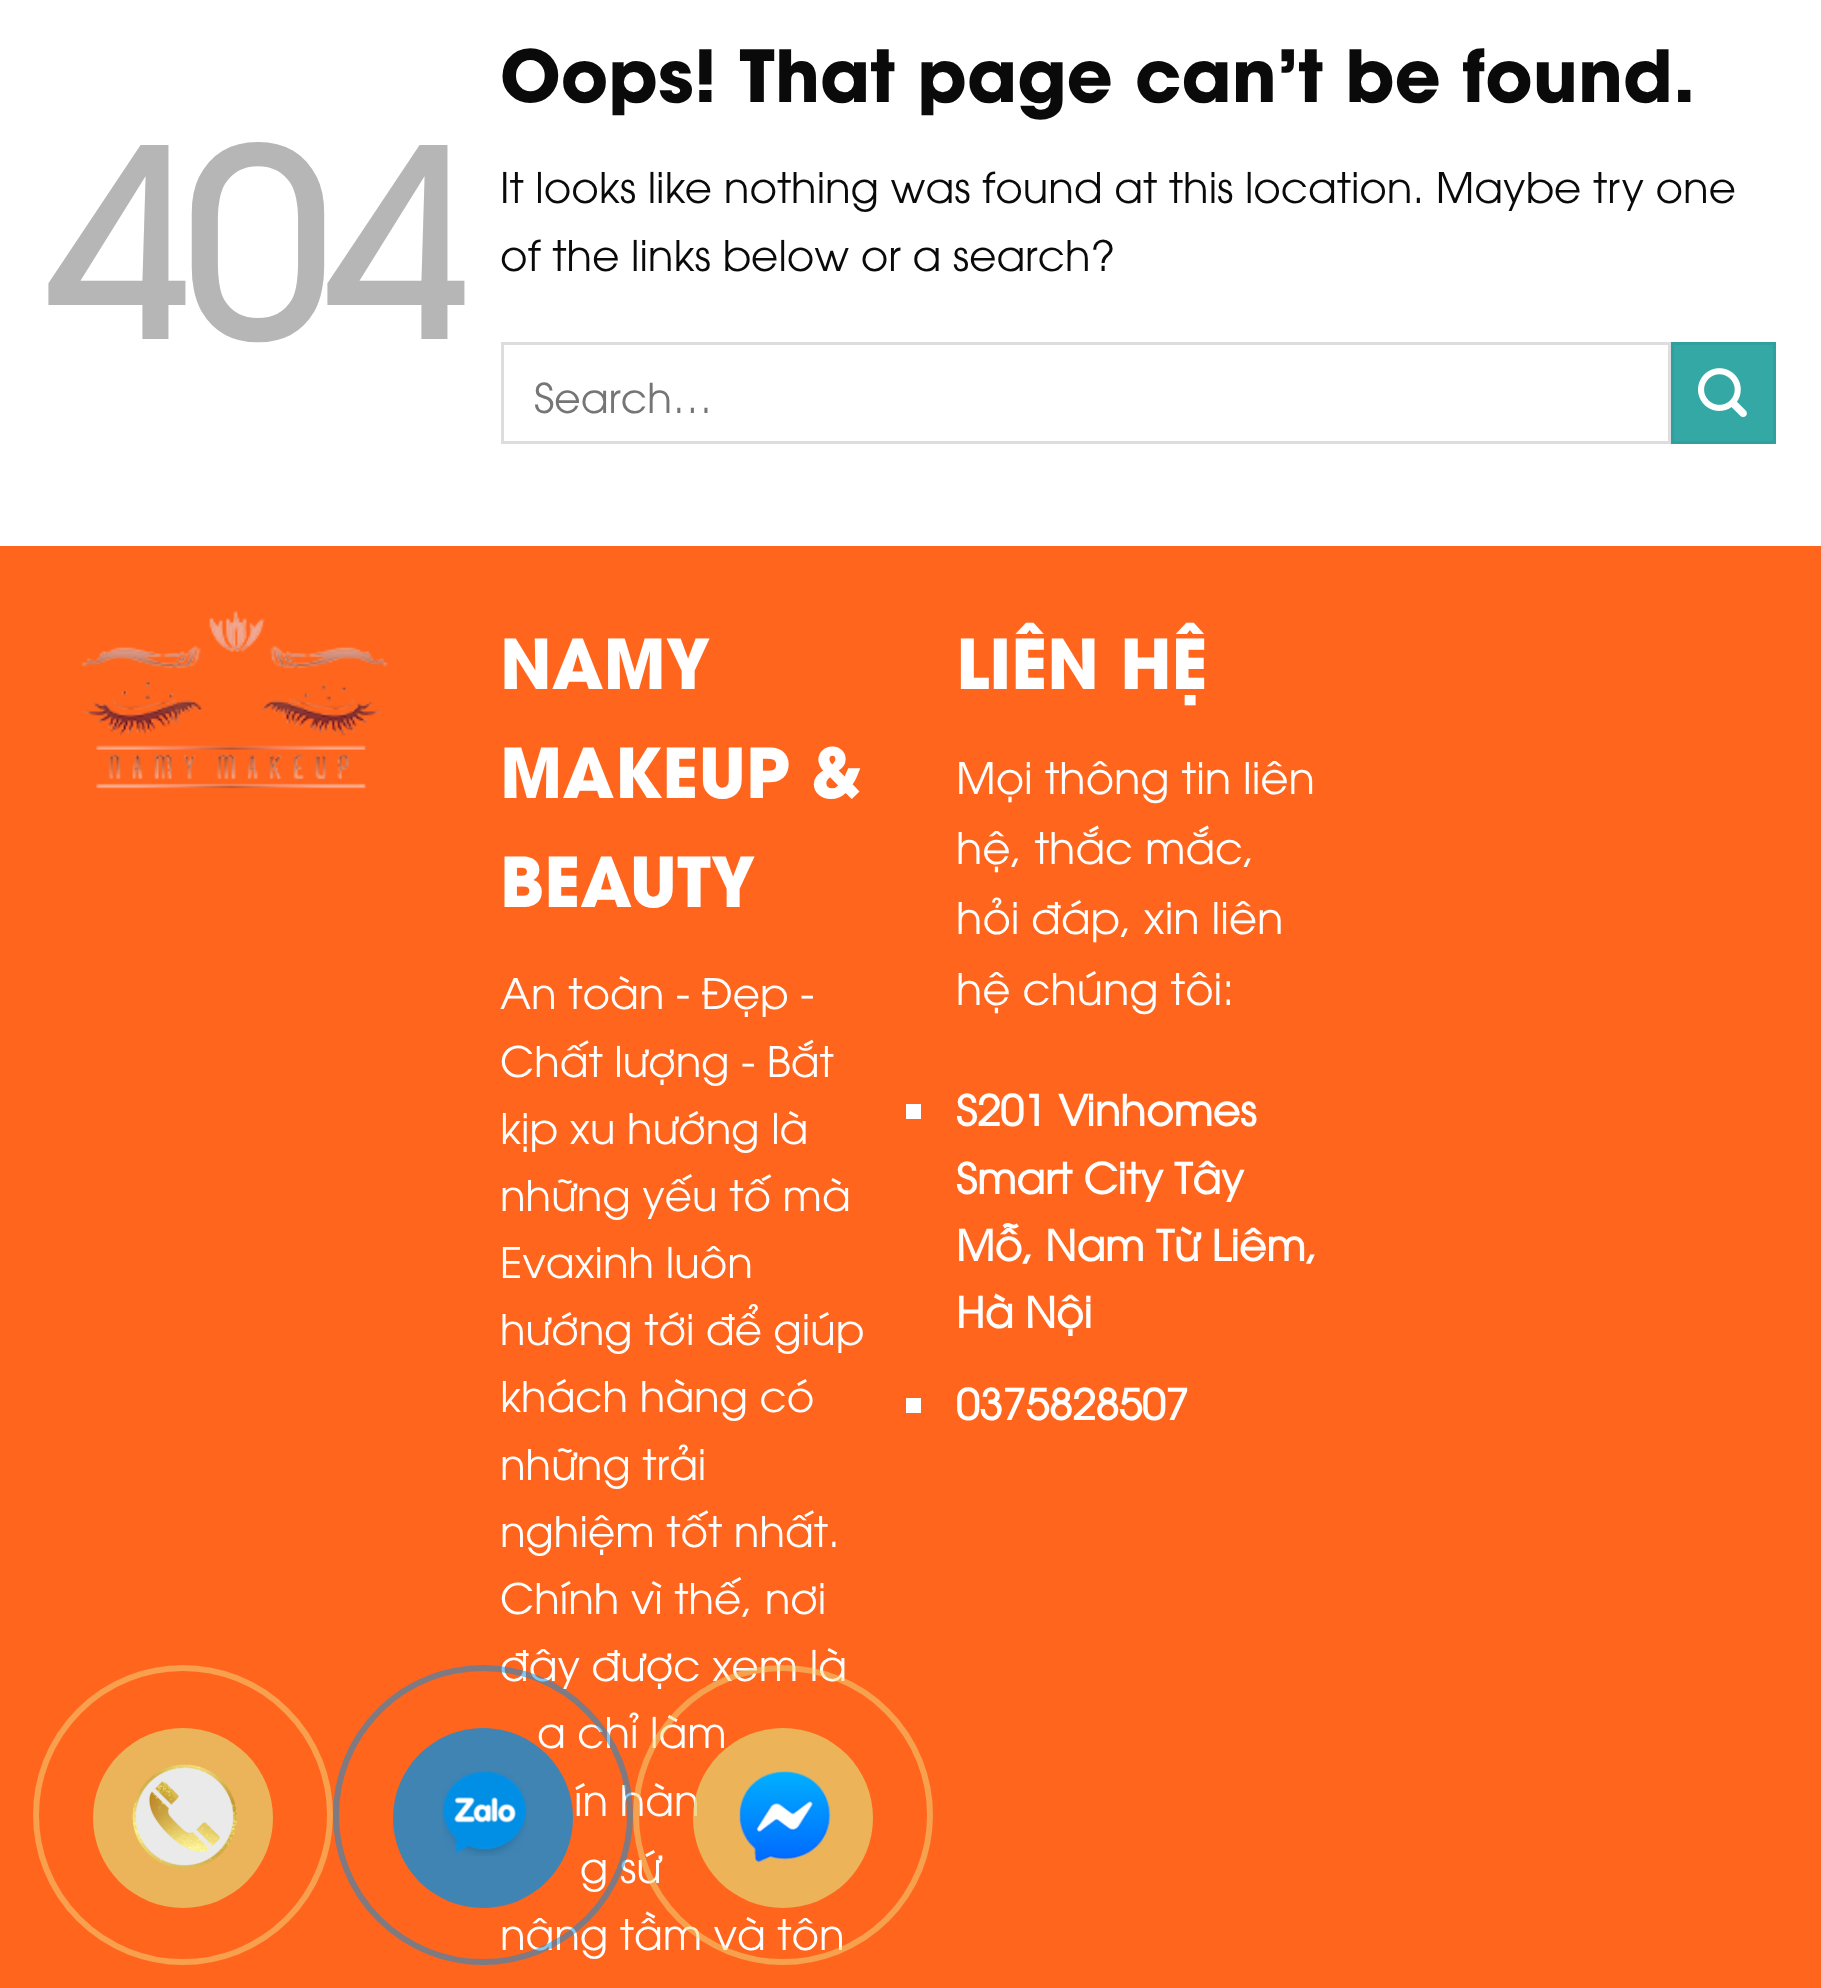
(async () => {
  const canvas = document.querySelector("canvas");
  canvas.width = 1821;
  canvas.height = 1988;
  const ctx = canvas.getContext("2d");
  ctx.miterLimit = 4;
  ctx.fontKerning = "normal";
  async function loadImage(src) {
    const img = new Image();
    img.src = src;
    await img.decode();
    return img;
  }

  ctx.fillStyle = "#ffffff";
  ctx.fillRect(0, 0, 1821, 1988);
  ctx.strokeStyle = "#dddddd";
  ctx.lineWidth = 3;
  ctx.strokeRect(502.5, 343.5, 1167, 99);
  ctx.fillStyle = "#34a8a4";
  ctx.beginPath();
  ctx.rect(1672.5, 343.5, 102, 99);
  ctx.fill();
  ctx.strokeStyle = "#31a09c";
  ctx.stroke();
  ctx.drawImage(await loadImage("img/1.png"), 1698, 368, 49, 49);
  ctx.fillStyle = "#ff651c";
  ctx.fillRect(0, 546, 1821, 1442);
  ctx.drawImage(await loadImage("img/2.png"), 81, 611, 307, 178);
  ctx.fillStyle = "#ffffff";
  ctx.fillRect(906, 1104, 15, 15);
  ctx.fillRect(906, 1398, 15, 15);
  ctx.beginPath();
  ctx.arc(183, 1815, 147, 0, Math.PI * 2);
  ctx.strokeStyle = "#f8a04d";
  ctx.lineWidth = 6;
  ctx.stroke();
  ctx.fillStyle = "#ecb45a";
  ctx.beginPath();
  ctx.arc(183, 1818, 90, 0, Math.PI * 2);
  ctx.fill();
  ctx.drawImage(await loadImage("img/3.png"), 132, 1764, 105, 105);
  ctx.font = "bold 252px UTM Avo";
  ctx.fillStyle = "#b6b6b6";
  ctx.fillText("404", 45, 339);
  ctx.font = "bold 71.4px 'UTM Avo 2'";
  ctx.fillStyle = "#0a0a0a";
  ctx.fillText("Oops! That page can’t be found.", 500, 102);
  ctx.font = "42px UTM Avo";
  ctx.fillText("It looks like nothing was found at this location. Maybe try one", 500, 203);
  ctx.fillText("of the links below or a search?", 500, 271);
  ctx.font = "40.75px UTM Avo";
  ctx.fillStyle = "#757575";
  ctx.fillText("Search…", 534, 413);
  ctx.font = "bold 68.25px 'UTM Avo 2'";
  ctx.fillStyle = "#ffffff";
  for (const [text, x, y] of [
    ["NAMY", 500, 689],
    ["MAKEUP &", 500, 798],
    ["BEAUTY", 500, 907],
  ]) {
    ctx.fillText(text, x, y);
  }
  ctx.font = "42px UTM Avo";
  for (const [text, x, y] of [
    ["An toàn - Đẹp -", 500, 1009],
    ["Chất lượng - Bắt", 500, 1077],
    ["kịp xu hướng là", 500, 1144],
    ["những yếu tố mà", 500, 1211],
    ["Evaxinh luôn", 500, 1278],
    ["hướng tới để giúp", 500, 1345],
    ["khách hàng có", 500, 1412],
    ["những trải", 500, 1480],
    ["nghiệm tốt nhất.", 500, 1547],
    ["Chính vì thế, nơi", 500, 1614],
    ["đây được xem là", 500, 1681],
    ["a chỉ làm", 537, 1748],
    ["ín hàn", 574, 1816],
    ["g sứ", 580, 1883],
    ["nâng tầm và tôn", 500, 1950],
  ]) {
    ctx.fillText(text, x, y);
  }
  ctx.font = "bold 68.25px 'UTM Avo 2'";
  ctx.fillText("LIÊN HỆ", 956, 689);
  ctx.font = "43.25px UTM Avo";
  for (const [text, x, y] of [
    ["Mọi thông tin liên", 956, 794],
    ["hệ, thắc mắc,", 956, 864],
    ["hỏi đáp, xin liên", 956, 934],
    ["hệ chúng tôi:", 956, 1005],
  ]) {
    ctx.fillText(text, x, y);
  }
  ctx.font = "bold 42px UTM Avo";
  for (const [text, x, y] of [
    ["S201 Vinhomes", 956, 1126],
    ["Smart City Tây", 956, 1194],
    ["Mỗ, Nam Từ Liêm,", 956, 1261],
    ["Hà Nội", 956, 1328],
    ["0375828507", 956, 1420],
  ]) {
    ctx.fillText(text, x, y);
  }
  ctx.beginPath();
  ctx.arc(483, 1815, 147, 0, Math.PI * 2);
  ctx.strokeStyle = "rgba(0, 143, 229, 0.5)";
  ctx.stroke();
  ctx.fillStyle = "rgba(0, 143, 229, 0.75)";
  ctx.beginPath();
  ctx.arc(483, 1818, 90, 0, Math.PI * 2);
  ctx.fill();
  ctx.drawImage(await loadImage("img/4.png"), 442, 1771, 85, 85);
  ctx.beginPath();
  ctx.arc(783, 1815, 147, 0, Math.PI * 2);
  ctx.strokeStyle = "rgba(240, 219, 125, 0.5)";
  ctx.stroke();
  ctx.fillStyle = "rgba(230, 206, 110, 0.75)";
  ctx.beginPath();
  ctx.arc(783, 1818, 90, 0, Math.PI * 2);
  ctx.fill();
  ctx.drawImage(await loadImage("img/5.png"), 739, 1771, 93, 92);
})();
